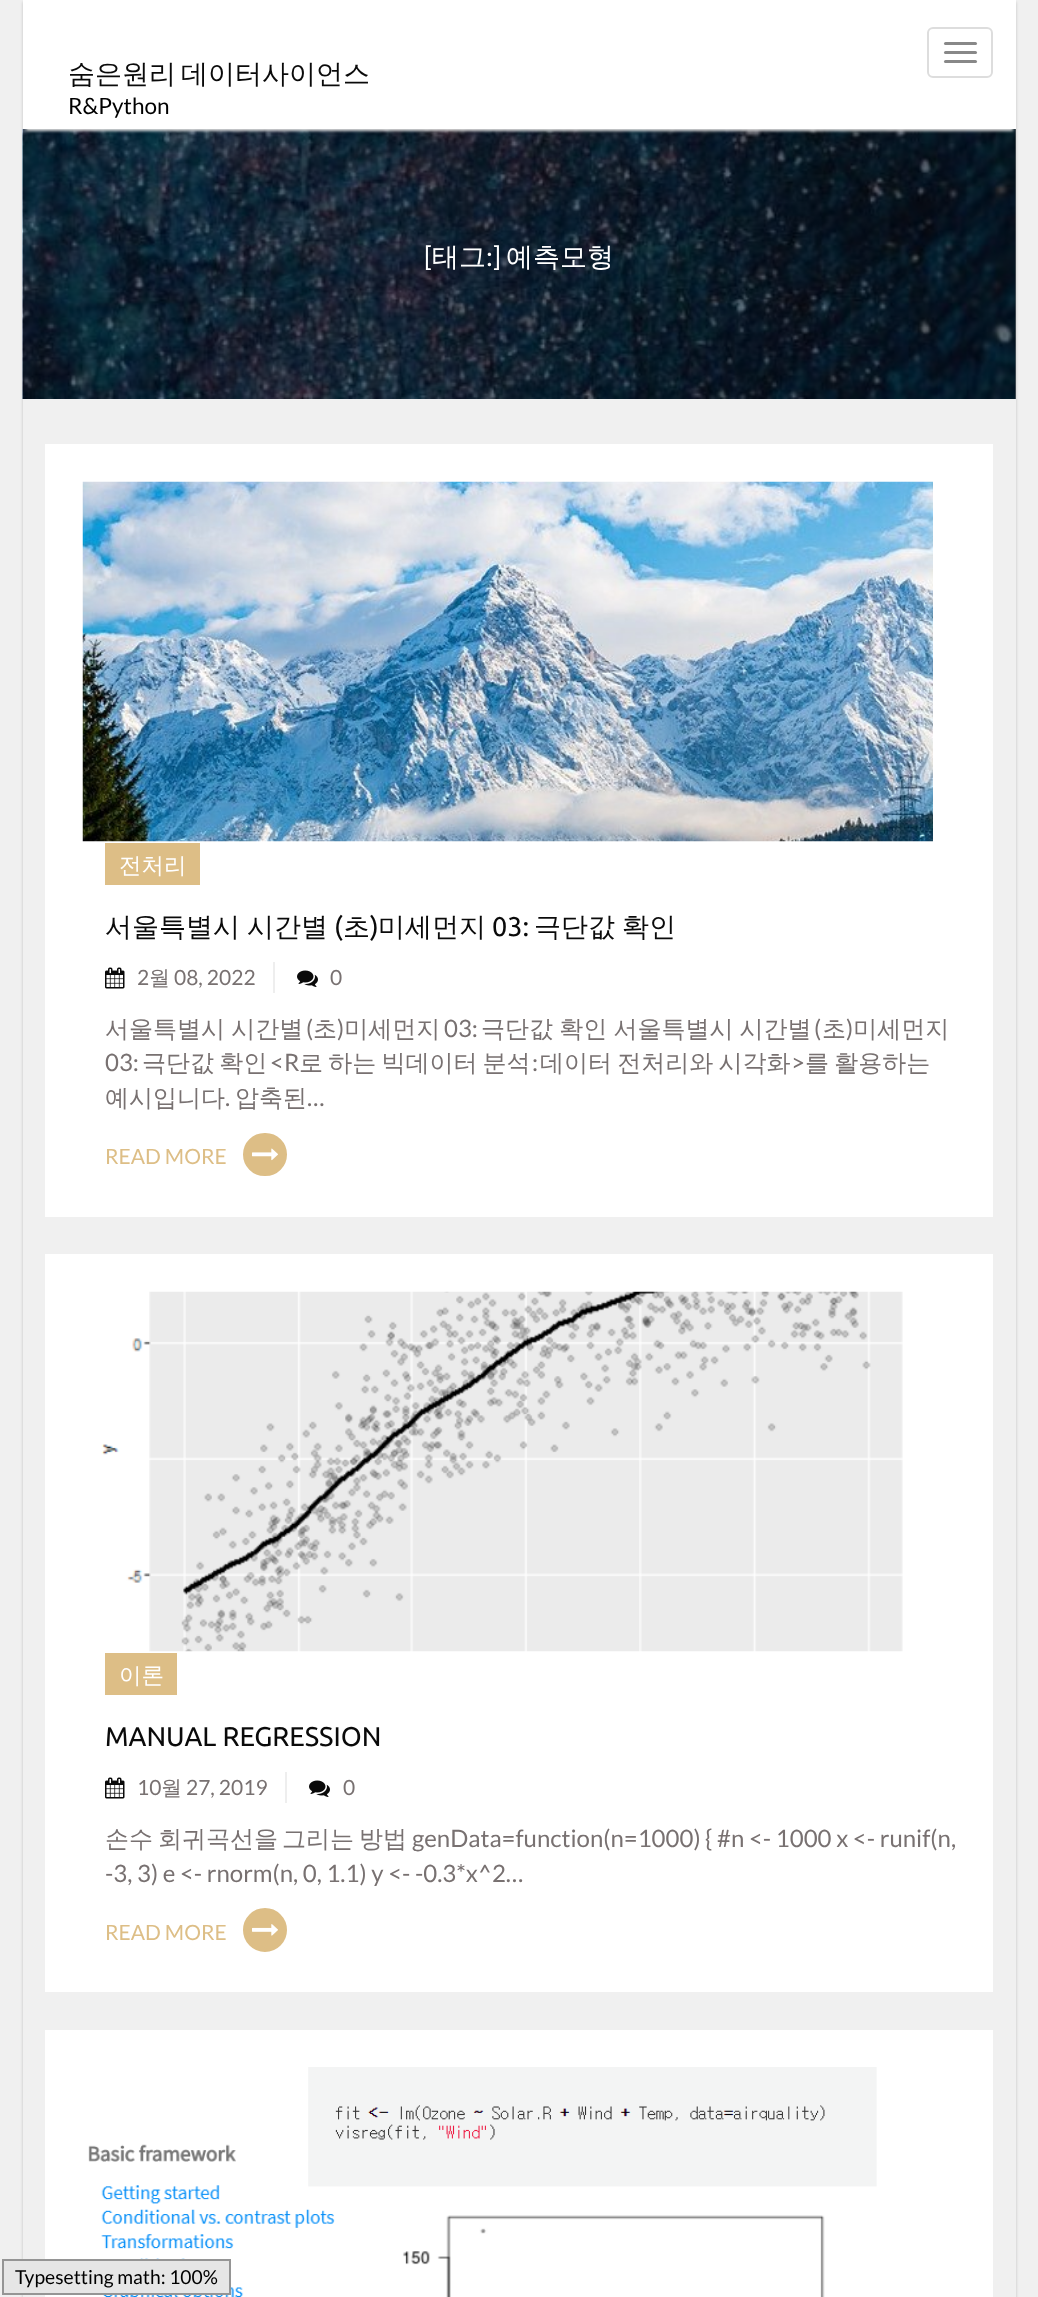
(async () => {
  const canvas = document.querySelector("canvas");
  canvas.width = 1038;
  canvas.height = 2297;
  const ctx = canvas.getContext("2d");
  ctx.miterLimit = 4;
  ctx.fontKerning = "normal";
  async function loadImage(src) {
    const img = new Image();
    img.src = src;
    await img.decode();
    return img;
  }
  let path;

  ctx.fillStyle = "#f0f0f0";
  ctx.fillRect(0, 0, 1038, 2297);
  ctx.save();
  path = new Path2D("M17 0H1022V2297H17ZM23 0H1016V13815H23Z");
  ctx.clip(path, "evenodd");
  ctx.fillStyle = "rgba(0, 0, 0, 0.2)";
  ctx.filter = "blur(1.5px)";
  ctx.beginPath();
  ctx.rect(23, 2, 993, 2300);
  ctx.fill();
  ctx.filter = "none";
  ctx.restore();
  ctx.drawImage(await loadImage("img/1.png"), 22, 129, 994, 270);
  ctx.fillStyle = "rgba(0, 0, 0, 0.5)";
  ctx.fillRect(23, 129, 993, 270);
  ctx.fillStyle = "#dddddd";
  ctx.filter = "blur(1.5px)";
  ctx.beginPath();
  ctx.rect(26, 8, 987, 123);
  ctx.fill();
  ctx.filter = "none";
  ctx.fillStyle = "#ffffff";
  ctx.fillRect(23, 0, 993, 129);
  ctx.beginPath();
  ctx.roundRect(928, 28, 64, 49, 5);
  ctx.strokeStyle = "#dddddd";
  ctx.lineWidth = 2;
  ctx.stroke();
  ctx.fillStyle = "#888888";
  ctx.beginPath();
  ctx.roundRect(944, 42, 33, 3, 1.5);
  ctx.fill();
  ctx.beginPath();
  ctx.roundRect(944, 51, 33, 3, 1.5);
  ctx.fill();
  ctx.beginPath();
  ctx.roundRect(944, 60, 33, 3, 1.5);
  ctx.fill();
  ctx.fillStyle = "#ffffff";
  ctx.fillRect(45, 444, 948, 773);
  ctx.drawImage(await loadImage("img/2.png"), 82, 481, 851, 361);
  ctx.fillStyle = "#ddbe86";
  ctx.fillRect(105, 843, 95, 42);
  ctx.fillStyle = "#eeeeee";
  ctx.fillRect(273, 962, 2, 31);
  ctx.drawImage(await loadImage("img/3.png"), 105, 967, 20, 22);
  ctx.drawImage(await loadImage("img/4.png"), 297, 970, 21, 17);
  ctx.fillStyle = "#ddbe86";
  ctx.beginPath();
  ctx.roundRect(241.5, 1131.5, 47, 46, 23);
  ctx.fill();
  ctx.strokeStyle = "#ffffff";
  ctx.lineWidth = 3;
  ctx.stroke();
  ctx.drawImage(await loadImage("img/5.png"), 252, 1148, 26, 13);
  ctx.fillStyle = "#ffffff";
  ctx.fillRect(45, 1254, 948, 738);
  ctx.drawImage(await loadImage("img/6.png"), 101, 1291, 802, 361);
  ctx.fillStyle = "#ddbe86";
  ctx.fillRect(105, 1653, 72, 42);
  ctx.fillStyle = "#eeeeee";
  ctx.fillRect(285, 1772, 2, 31);
  ctx.drawImage(await loadImage("img/3.png"), 105, 1777, 20, 22);
  ctx.drawImage(await loadImage("img/4.png"), 309, 1780, 21, 17);
  ctx.fillStyle = "#ddbe86";
  ctx.beginPath();
  ctx.arc(265, 1930, 23.5, 0, Math.PI * 2);
  ctx.fill();
  ctx.stroke();
  ctx.drawImage(await loadImage("img/7.png"), 252, 1924, 26, 12);
  ctx.fillStyle = "#ffffff";
  ctx.fillRect(45, 2030, 948, 267);
  ctx.drawImage(await loadImage("img/8.png"), 88, 2067, 789, 230);
  ctx.fillStyle = "#e6e6e6";
  ctx.beginPath();
  ctx.rect(3, 2260, 227, 34);
  ctx.fill();
  ctx.strokeStyle = "#959595";
  ctx.lineWidth = 2;
  ctx.stroke();
  ctx.wordSpacing = "-3px";
  ctx.font = "500 27px WenQuanYi Zen Hei";
  ctx.fillStyle = "#0a0a0a";
  ctx.fillText("숨은원리 데이터사이언스", 68, 83);
  ctx.wordSpacing = "0px";
  ctx.font = "22.5px Lato";
  ctx.fillStyle = "#000000";
  ctx.fillText("R&Python", 68, 114);
  ctx.font = "27px Lato";
  ctx.fillStyle = "#ffffff";
  ctx.fillText("[", 424, 266);
  ctx.font = "500 27px WenQuanYi Zen Hei";
  ctx.fillText("태그", 432, 266);
  ctx.font = "27px Lato";
  ctx.fillText(":]", 486, 266);
  ctx.font = "500 27px WenQuanYi Zen Hei";
  ctx.fillText("예측모형", 506, 266);
  ctx.font = "500 22.5px WenQuanYi Zen Hei";
  ctx.fillText("전처리", 119, 873);
  ctx.wordSpacing = "-1px";
  ctx.font = "500 27px WenQuanYi Zen Hei";
  ctx.fillStyle = "#0a0a0a";
  ctx.fillText("서울특별시 시간별", 105, 936);
  ctx.wordSpacing = "0px";
  ctx.font = "27px Ubuntu";
  ctx.fillText("(", 334, 936);
  ctx.font = "500 27px WenQuanYi Zen Hei";
  ctx.fillText("초", 343, 936);
  ctx.font = "27px Ubuntu";
  ctx.fillText(")", 370, 936);
  ctx.font = "500 27px WenQuanYi Zen Hei";
  ctx.fillText("미세먼지", 378, 936);
  ctx.font = "27px Ubuntu";
  ctx.fillText("03:", 492, 936);
  ctx.wordSpacing = "-1px";
  ctx.font = "500 27px WenQuanYi Zen Hei";
  ctx.fillText("극단값 확인", 534, 936);
  ctx.wordSpacing = "0px";
  ctx.font = "21px Lato";
  ctx.fillStyle = "#787171";
  ctx.fillText("2", 137, 985);
  ctx.font = "500 21px WenQuanYi Zen Hei";
  ctx.fillText("월", 149, 985);
  ctx.font = "21px Lato";
  ctx.fillText("08, 2022", 174, 985);
  ctx.fillText("0", 330, 985);
  ctx.wordSpacing = "-1px";
  ctx.font = "500 24px WenQuanYi Zen Hei";
  ctx.fillText("서울특별시 시간별", 105, 1037);
  ctx.wordSpacing = "0px";
  ctx.font = "24px Lato";
  ctx.fillText("(", 306, 1037);
  ctx.fillText("(", 814, 1037);
  ctx.font = "500 24px WenQuanYi Zen Hei";
  ctx.fillText("초 미세먼지", 313, 1037);
  ctx.font = "24px Lato";
  ctx.fillText(")", 337, 1037);
  ctx.fillText("03:", 444, 1037);
  ctx.wordSpacing = "-1px";
  ctx.font = "500 24px WenQuanYi Zen Hei";
  ctx.fillText("극단값 확인 서울특별시 시간별", 481, 1037);
  ctx.wordSpacing = "0px";
  ctx.fillText("초 미세먼지", 822, 1037);
  ctx.font = "24px Lato";
  ctx.fillText(")", 846, 1037);
  ctx.fillText("03:", 105, 1071);
  ctx.wordSpacing = "-2px";
  ctx.font = "500 24px WenQuanYi Zen Hei";
  ctx.fillText("극단값 확인", 142, 1071);
  ctx.wordSpacing = "0px";
  ctx.font = "24px Lato";
  ctx.fillText("<R", 270, 1071);
  ctx.wordSpacing = "-2px";
  ctx.font = "500 24px WenQuanYi Zen Hei";
  ctx.fillText("로 하는 빅데이터 분석", 299, 1071);
  ctx.wordSpacing = "0px";
  ctx.font = "24px Lato";
  ctx.fillText(":", 532, 1071);
  ctx.wordSpacing = "-2px";
  ctx.font = "500 24px WenQuanYi Zen Hei";
  ctx.fillText("데이터 전처리와 시각화", 540, 1071);
  ctx.wordSpacing = "0px";
  ctx.font = "24px Lato";
  ctx.fillText(">", 791, 1071);
  ctx.wordSpacing = "-2px";
  ctx.font = "500 24px WenQuanYi Zen Hei";
  ctx.fillText("를 활용하는", 805, 1071);
  ctx.wordSpacing = "0px";
  ctx.fillText("예시입니다", 105, 1106);
  ctx.font = "24px Lato";
  ctx.fillText(".", 225, 1106);
  ctx.font = "500 24px WenQuanYi Zen Hei";
  ctx.fillText("압축된", 235, 1106);
  ctx.font = "24px Lato";
  ctx.fillText("…", 307, 1106);
  ctx.font = "21px Lato";
  ctx.fillStyle = "#ddbe86";
  ctx.fillText("READ MORE", 105, 1164);
  ctx.font = "500 22.5px WenQuanYi Zen Hei";
  ctx.fillStyle = "#ffffff";
  ctx.fillText("이론", 119, 1683);
  ctx.font = "27px Ubuntu";
  ctx.fillStyle = "#0a0a0a";
  ctx.fillText("MANUAL REGRESSION", 105, 1746);
  ctx.font = "21px Lato";
  ctx.fillStyle = "#787171";
  ctx.fillText("10", 137, 1795);
  ctx.font = "500 21px WenQuanYi Zen Hei";
  ctx.fillText("월", 161, 1795);
  ctx.font = "21px Lato";
  ctx.fillText("27, 2019", 186, 1795);
  ctx.fillText("0", 343, 1795);
  ctx.font = "500 24px WenQuanYi Zen Hei";
  for (const [text, x, y] of [
    ["손수", 105, 1847],
    ["회귀곡선을", 158, 1847],
    ["그리는", 282, 1847],
    ["방법", 359, 1847],
  ]) {
    ctx.fillText(text, x, y);
  }
  ctx.font = "24px Lato";
  ctx.fillText("genData=function(n=1000) { #n <- 1000 x <- runif(n,", 412, 1847);
  ctx.fillText("-3, 3) e <- rnorm(n, 0, 1.1) y <- -0.3*x^2…", 105, 1882);
  ctx.font = "21px Lato";
  ctx.fillStyle = "#ddbe86";
  ctx.fillText("READ MORE", 105, 1940);
  ctx.font = "19.25px Lato";
  ctx.fillStyle = "#000000";
  ctx.fillText("Typesetting math: 100%", 15, 2284);
})();
